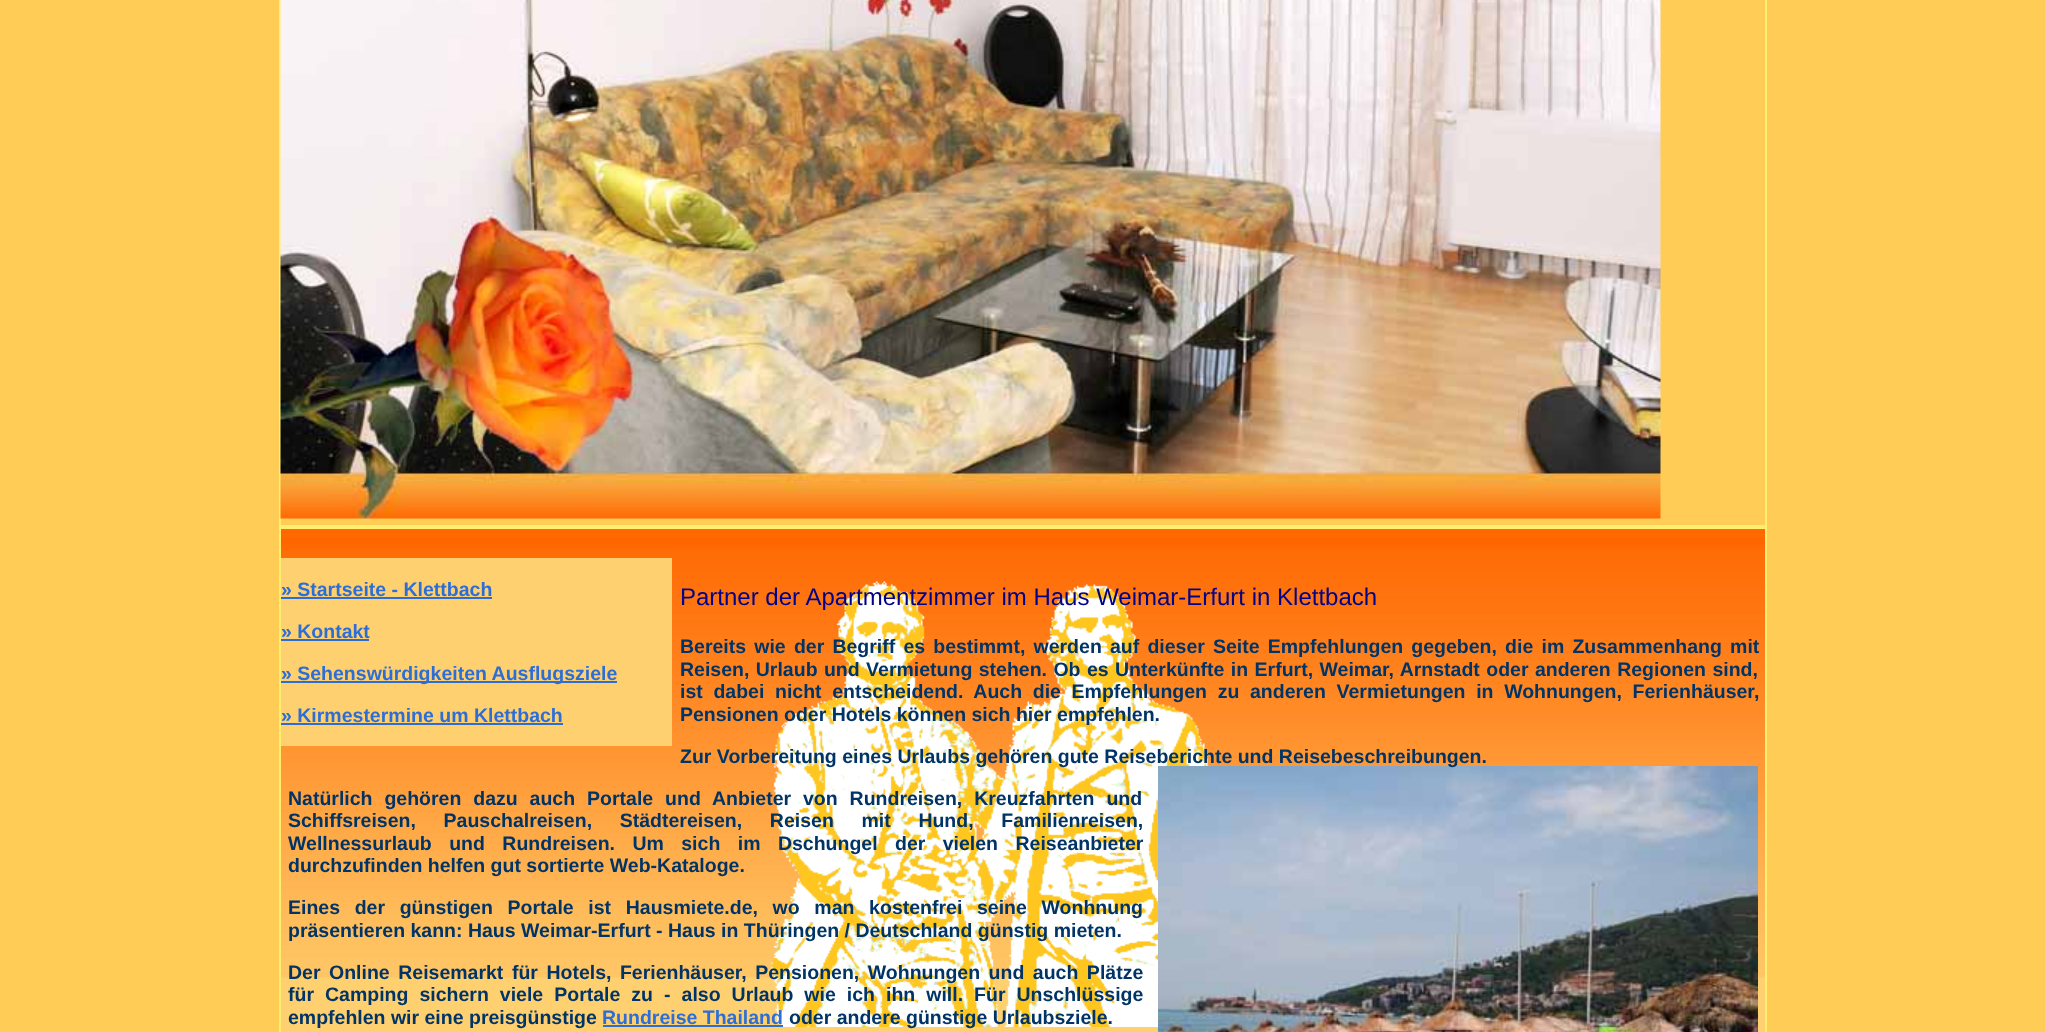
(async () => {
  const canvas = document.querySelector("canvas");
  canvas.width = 2045;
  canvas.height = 1032;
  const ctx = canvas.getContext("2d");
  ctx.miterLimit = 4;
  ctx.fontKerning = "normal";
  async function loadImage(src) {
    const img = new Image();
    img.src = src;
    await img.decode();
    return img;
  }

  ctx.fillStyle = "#ffcc55";
  ctx.fillRect(0, 0, 2045, 1032);
  ctx.strokeStyle = "#ffee70";
  ctx.lineWidth = 2;
  ctx.strokeRect(280, -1, 1486, 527);
  ctx.drawImage(await loadImage("img/1.png"), 280, 0, 1381, 519);
  ctx.fillStyle = "#ffd070";
  ctx.fillRect(281, 529, 1484, 503);
  ctx.drawImage(await loadImage("img/2.png"), 281, 529, 1484, 449);
  ctx.strokeRect(280, 528, 1486, 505);
  for (const [x, y, w, h, color] of [
    [281, 558, 391, 188, "#ffd070"],
    [281, 597, 211, 2, "#2c6ed5"],
    [281, 639, 88, 2, "#2c6ed5"],
    [281, 681, 336, 2, "#2c6ed5"],
    [281, 723, 282, 2, "#2c6ed5"],
  ]) {
    ctx.fillStyle = color;
    ctx.fillRect(x, y, w, h);
  }
  ctx.drawImage(await loadImage("img/3.png"), 770, 581, 440, 446);
  ctx.drawImage(await loadImage("img/4.png"), 1158, 766, 600, 266);
  ctx.fillRect(603, 1025, 180, 2);
  ctx.font = "bold 19.5px Liberation Sans";
  for (const [text, x, y] of [
    ["» Startseite - Klettbach", 281, 596],
    ["» Kontakt", 281, 638],
    ["» Sehenswürdigkeiten Ausflugsziele", 281, 680],
    ["» Kirmestermine um Klettbach", 281, 722],
  ]) {
    ctx.fillText(text, x, y);
  }
  ctx.font = "24px Liberation Sans";
  ctx.fillStyle = "#00008b";
  ctx.fillText("Partner der Apartmentzimmer im Haus Weimar-Erfurt in Klettbach", 680, 605);
  ctx.wordSpacing = "2.75px";
  ctx.font = "bold 19.5px Liberation Sans";
  ctx.fillStyle = "#003366";
  ctx.fillText("Bereits wie der Begriff es bestimmt, werden auf dieser Seite Empfehlungen gegeben, die im Zusammenhang mit", 680, 653);
  ctx.wordSpacing = "1px";
  ctx.fillText("Reisen, Urlaub und Vermietung stehen. Ob es Unterkünfte in Erfurt, Weimar, Arnstadt oder anderen Regionen sind,", 680, 676);
  ctx.wordSpacing = "5.25px";
  ctx.fillText("ist dabei nicht entscheidend. Auch die Empfehlungen zu anderen Vermietungen in Wohnungen, Ferienhäuser,", 680, 698);
  ctx.wordSpacing = "0px";
  ctx.fillText("Pensionen oder Hotels können sich hier empfehlen.", 680, 721);
  ctx.fillText("Zur Vorbereitung eines Urlaubs gehören gute Reiseberichte und Reisebeschreibungen.", 680, 763);
  ctx.wordSpacing = "6.5px";
  ctx.fillText("Natürlich gehören dazu auch Portale und Anbieter von Rundreisen, Kreuzfahrten und", 288, 805);
  ctx.wordSpacing = "22.25px";
  ctx.fillText("Schiffsreisen, Pauschalreisen, Städtereisen, Reisen mit Hund, Familienreisen,", 288, 827);
  ctx.wordSpacing = "12px";
  ctx.fillText("Wellnessurlaub und Rundreisen. Um sich im Dschungel der vielen Reiseanbieter", 288, 850);
  ctx.wordSpacing = "0px";
  ctx.fillText("durchzufinden helfen gut sortierte Web-Kataloge.", 288, 872);
  ctx.wordSpacing = "9.25px";
  ctx.fillText("Eines der günstigen Portale ist Hausmiete.de, wo man kostenfrei seine Wonhnung", 288, 914);
  ctx.wordSpacing = "0px";
  ctx.fillText("präsentieren kann: Haus Weimar-Erfurt - Haus in Thüringen / Deutschland günstig mieten.", 288, 937);
  ctx.wordSpacing = "3.1px";
  ctx.fillText("Der Online Reisemarkt für Hotels, Ferienhäuser, Pensionen, Wohnungen und auch Plätze", 288, 979);
  ctx.wordSpacing = "5.6px";
  ctx.fillText("für Camping sichern viele Portale zu - also Urlaub wie ich ihn will. Für Unschlüssige", 288, 1001);
  ctx.wordSpacing = "0px";
  ctx.fillText("empfehlen wir eine preisgünstige", 288, 1024);
  ctx.fillStyle = "#2c6ed5";
  ctx.fillText("Rundreise Thailand", 602, 1024);
  ctx.fillStyle = "#003366";
  ctx.fillText("oder andere günstige Urlaubsziele.", 789, 1024);
})();
